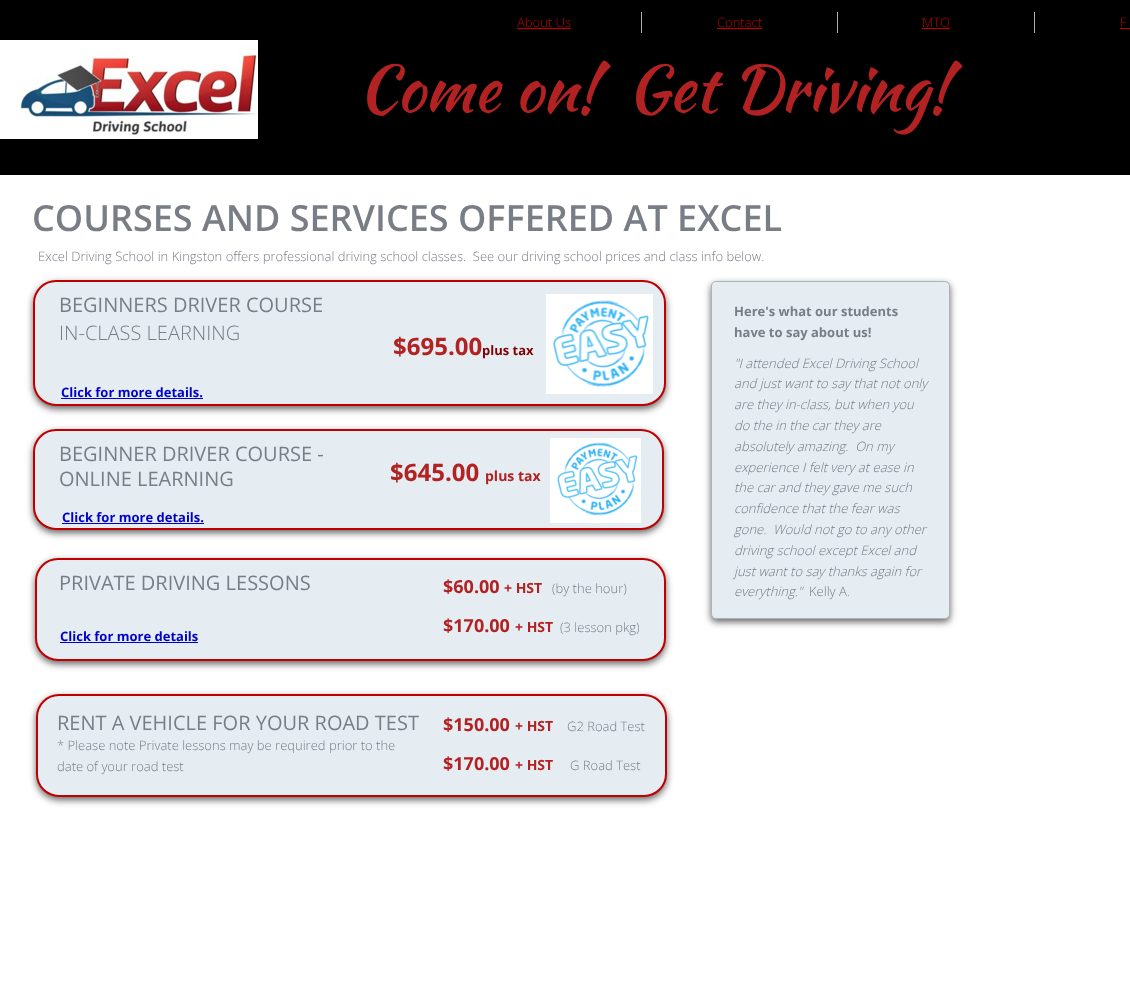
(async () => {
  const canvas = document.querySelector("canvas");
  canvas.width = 1130;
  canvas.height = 983;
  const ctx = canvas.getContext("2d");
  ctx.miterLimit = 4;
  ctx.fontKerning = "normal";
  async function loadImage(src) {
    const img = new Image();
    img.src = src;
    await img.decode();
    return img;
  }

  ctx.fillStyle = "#000000";
  ctx.fillRect(0, 0, 1130, 983);
  for (const [x, y, w, h, color] of [
    [0, 175, 1130, 808, "#ffffff"],
    [641, 12, 1, 21, "#aeaeae"],
    [517, 28, 54, 1, "#bf0000"],
    [837, 12, 1, 21, "#aeaeae"],
    [717, 28, 45, 1, "#bf0000"],
    [1034, 12, 1, 21, "#aeaeae"],
    [922, 28, 28, 1, "#bf0000"],
    [1120, 28, 10, 1, "#bf0000"],
  ]) {
    ctx.fillStyle = color;
    ctx.fillRect(x, y, w, h);
  }
  ctx.drawImage(await loadImage("img/1.png"), 0, 40, 258, 99);
  ctx.fillStyle = "rgba(50, 50, 50, 0.75)";
  ctx.filter = "blur(3.5px)";
  ctx.beginPath();
  ctx.roundRect(33, 283, 633, 126, 23);
  ctx.fill();
  ctx.filter = "none";
  ctx.fillStyle = "#e5edf2";
  ctx.beginPath();
  ctx.roundRect(34, 281, 631, 124, 22);
  ctx.fill();
  ctx.strokeStyle = "#bf0000";
  ctx.lineWidth = 2;
  ctx.stroke();
  ctx.fillStyle = "rgba(50, 50, 50, 0.75)";
  ctx.filter = "blur(3.5px)";
  ctx.beginPath();
  ctx.roundRect(711, 284, 239, 338, 5);
  ctx.fill();
  ctx.filter = "none";
  ctx.fillStyle = "#e5edf2";
  ctx.beginPath();
  ctx.roundRect(711.5, 281.5, 238, 337, 4.5);
  ctx.fill();
  ctx.strokeStyle = "#a9b4bb";
  ctx.lineWidth = 1;
  ctx.stroke();
  ctx.drawImage(await loadImage("img/2.png"), 546, 294, 107, 100);
  ctx.fillStyle = "#0000cd";
  ctx.fillRect(61, 398, 142, 1);
  ctx.fillStyle = "rgba(50, 50, 50, 0.75)";
  ctx.filter = "blur(3.5px)";
  ctx.beginPath();
  ctx.roundRect(33, 432, 631, 101, 23);
  ctx.fill();
  ctx.filter = "none";
  ctx.fillStyle = "#e5edf2";
  ctx.beginPath();
  ctx.roundRect(34, 430, 629, 99, 22);
  ctx.fill();
  ctx.strokeStyle = "#bf0000";
  ctx.lineWidth = 2;
  ctx.stroke();
  ctx.drawImage(await loadImage("img/3.png"), 550, 438, 91, 85);
  ctx.fillStyle = "#0000cd";
  ctx.fillRect(62, 523, 142, 1);
  ctx.fillStyle = "rgba(50, 50, 50, 0.75)";
  ctx.filter = "blur(3.5px)";
  ctx.beginPath();
  ctx.roundRect(35, 561, 631, 103, 23);
  ctx.fill();
  ctx.filter = "none";
  ctx.fillStyle = "#e5edf2";
  ctx.beginPath();
  ctx.roundRect(36, 559, 629, 101, 22);
  ctx.fill();
  ctx.stroke();
  ctx.fillStyle = "#0000cd";
  ctx.fillRect(60, 642, 138, 1);
  ctx.fillStyle = "rgba(50, 50, 50, 0.75)";
  ctx.filter = "blur(3.5px)";
  ctx.beginPath();
  ctx.roundRect(36, 697, 631, 103, 23);
  ctx.fill();
  ctx.filter = "none";
  ctx.fillStyle = "#e5edf2";
  ctx.beginPath();
  ctx.roundRect(37, 695, 629, 101, 22);
  ctx.fill();
  ctx.stroke();
  ctx.font = "300 13px Open Sans";
  ctx.fillStyle = "#bf0000";
  for (const [text, x, y] of [
    ["About Us", 517, 27],
    ["Contact", 717, 27],
    ["MTO", 922, 27],
    ["F", 1120, 27],
  ]) {
    ctx.fillText(text, x, y);
  }
  ctx.font = "64px Kaushan Script";
  ctx.fillStyle = "#b22222";
  ctx.fillText("Come on!  Get Driving!", 358, 111);
  ctx.font = "600 36px Open Sans";
  ctx.fillStyle = "#787d86";
  ctx.fillText("COURSES AND SERVICES OFFERED AT EXCEL", 32, 231);
  ctx.font = "300 13px Open Sans";
  ctx.fillText("Excel Driving School in Kingston offers professional driving school classes.  See our driving school prices and class info below.", 38, 261);
  ctx.font = "20px Open Sans";
  ctx.fillText("BEGINNERS DRIVER COURSE", 59, 312);
  ctx.font = "300 20px Open Sans";
  ctx.fillText("IN-CLASS LEARNING", 59, 340);
  ctx.font = "bold 24px Open Sans";
  ctx.fillStyle = "#b22222";
  ctx.fillText("$695.00", 393, 355);
  ctx.font = "bold 13px Open Sans";
  ctx.fillStyle = "#800000";
  ctx.fillText("plus tax", 482, 355);
  ctx.fillStyle = "#787d86";
  ctx.fillText("Here's what our students", 734, 316);
  ctx.fillText("have to say about us!", 734, 337);
  ctx.font = "italic 300 13px Open Sans";
  for (const [text, x, y] of [
    ["\"I attended Excel Driving School", 734, 368],
    ["and just want to say that not only", 734, 388],
    ["are they in-class, but when you", 734, 409],
    ["do the in the car they are", 734, 430],
    ["absolutely amazing.  On my", 734, 451],
    ["experience I felt very at ease in", 734, 472],
    ["the car and they gave me such", 734, 492],
    ["confidence that the fear was", 734, 513],
    ["gone.  Would not go to any other", 734, 534],
    ["driving school except Excel and", 734, 555],
    ["just want to say thanks again for", 734, 576],
    ["everything.\"", 734, 596],
  ]) {
    ctx.fillText(text, x, y);
  }
  ctx.font = "300 13px Open Sans";
  ctx.fillText("Kelly A.", 809, 596);
  ctx.font = "bold 13px Open Sans";
  ctx.fillStyle = "#0000cd";
  ctx.fillText("Click for more details.", 61, 397);
  ctx.font = "20px Open Sans";
  ctx.fillStyle = "#787d86";
  ctx.fillText("BEGINNER DRIVER COURSE -", 59, 461);
  ctx.fillText("ONLINE LEARNING", 59, 486);
  ctx.font = "bold 24px Open Sans";
  ctx.fillStyle = "#b22222";
  ctx.fillText("$645.00", 390, 481);
  ctx.font = "bold 14px Open Sans";
  ctx.fillText("plus tax", 485, 481);
  ctx.font = "bold 13px Open Sans";
  ctx.fillStyle = "#0000cd";
  ctx.fillText("Click for more details.", 62, 522);
  ctx.font = "20px Open Sans";
  ctx.fillStyle = "#787d86";
  ctx.fillText("PRIVATE DRIVING LESSONS", 59, 590);
  ctx.font = "bold 18px Open Sans";
  ctx.fillStyle = "#b22222";
  ctx.fillText("$60.00", 443, 593);
  ctx.font = "bold 14px Open Sans";
  ctx.fillText("+ HST", 504, 593);
  ctx.font = "300 13px Open Sans";
  ctx.fillStyle = "#787d86";
  ctx.fillText("(by the hour)", 552, 593);
  ctx.font = "bold 18px Open Sans";
  ctx.fillStyle = "#b22222";
  ctx.fillText("$170.00", 443, 632);
  ctx.font = "bold 14px Open Sans";
  ctx.fillText("+ HST", 515, 632);
  ctx.font = "300 13px Open Sans";
  ctx.fillStyle = "#787d86";
  ctx.fillText("(3 lesson pkg)", 560, 632);
  ctx.font = "bold 13px Open Sans";
  ctx.fillStyle = "#0000cd";
  ctx.fillText("Click for more details", 60, 641);
  ctx.font = "20px Open Sans";
  ctx.fillStyle = "#787d86";
  ctx.fillText("RENT A VEHICLE FOR YOUR ROAD TEST", 57, 730);
  ctx.font = "300 13px Open Sans";
  ctx.fillText("* Please note Private lessons may be required prior to the", 57, 750);
  ctx.fillText("date of your road test", 57, 771);
  ctx.font = "bold 18px Open Sans";
  ctx.fillStyle = "#b22222";
  ctx.fillText("$150.00", 443, 731);
  ctx.font = "bold 14px Open Sans";
  ctx.fillText("+ HST", 515, 731);
  ctx.font = "300 13px Open Sans";
  ctx.fillStyle = "#787d86";
  ctx.fillText("G2 Road Test", 567, 731);
  ctx.font = "bold 18px Open Sans";
  ctx.fillStyle = "#b22222";
  ctx.fillText("$170.00", 443, 770);
  ctx.font = "bold 14px Open Sans";
  ctx.fillText("+ HST", 515, 770);
  ctx.font = "300 13px Open Sans";
  ctx.fillStyle = "#787d86";
  ctx.fillText("G Road Test", 570, 770);
})();
